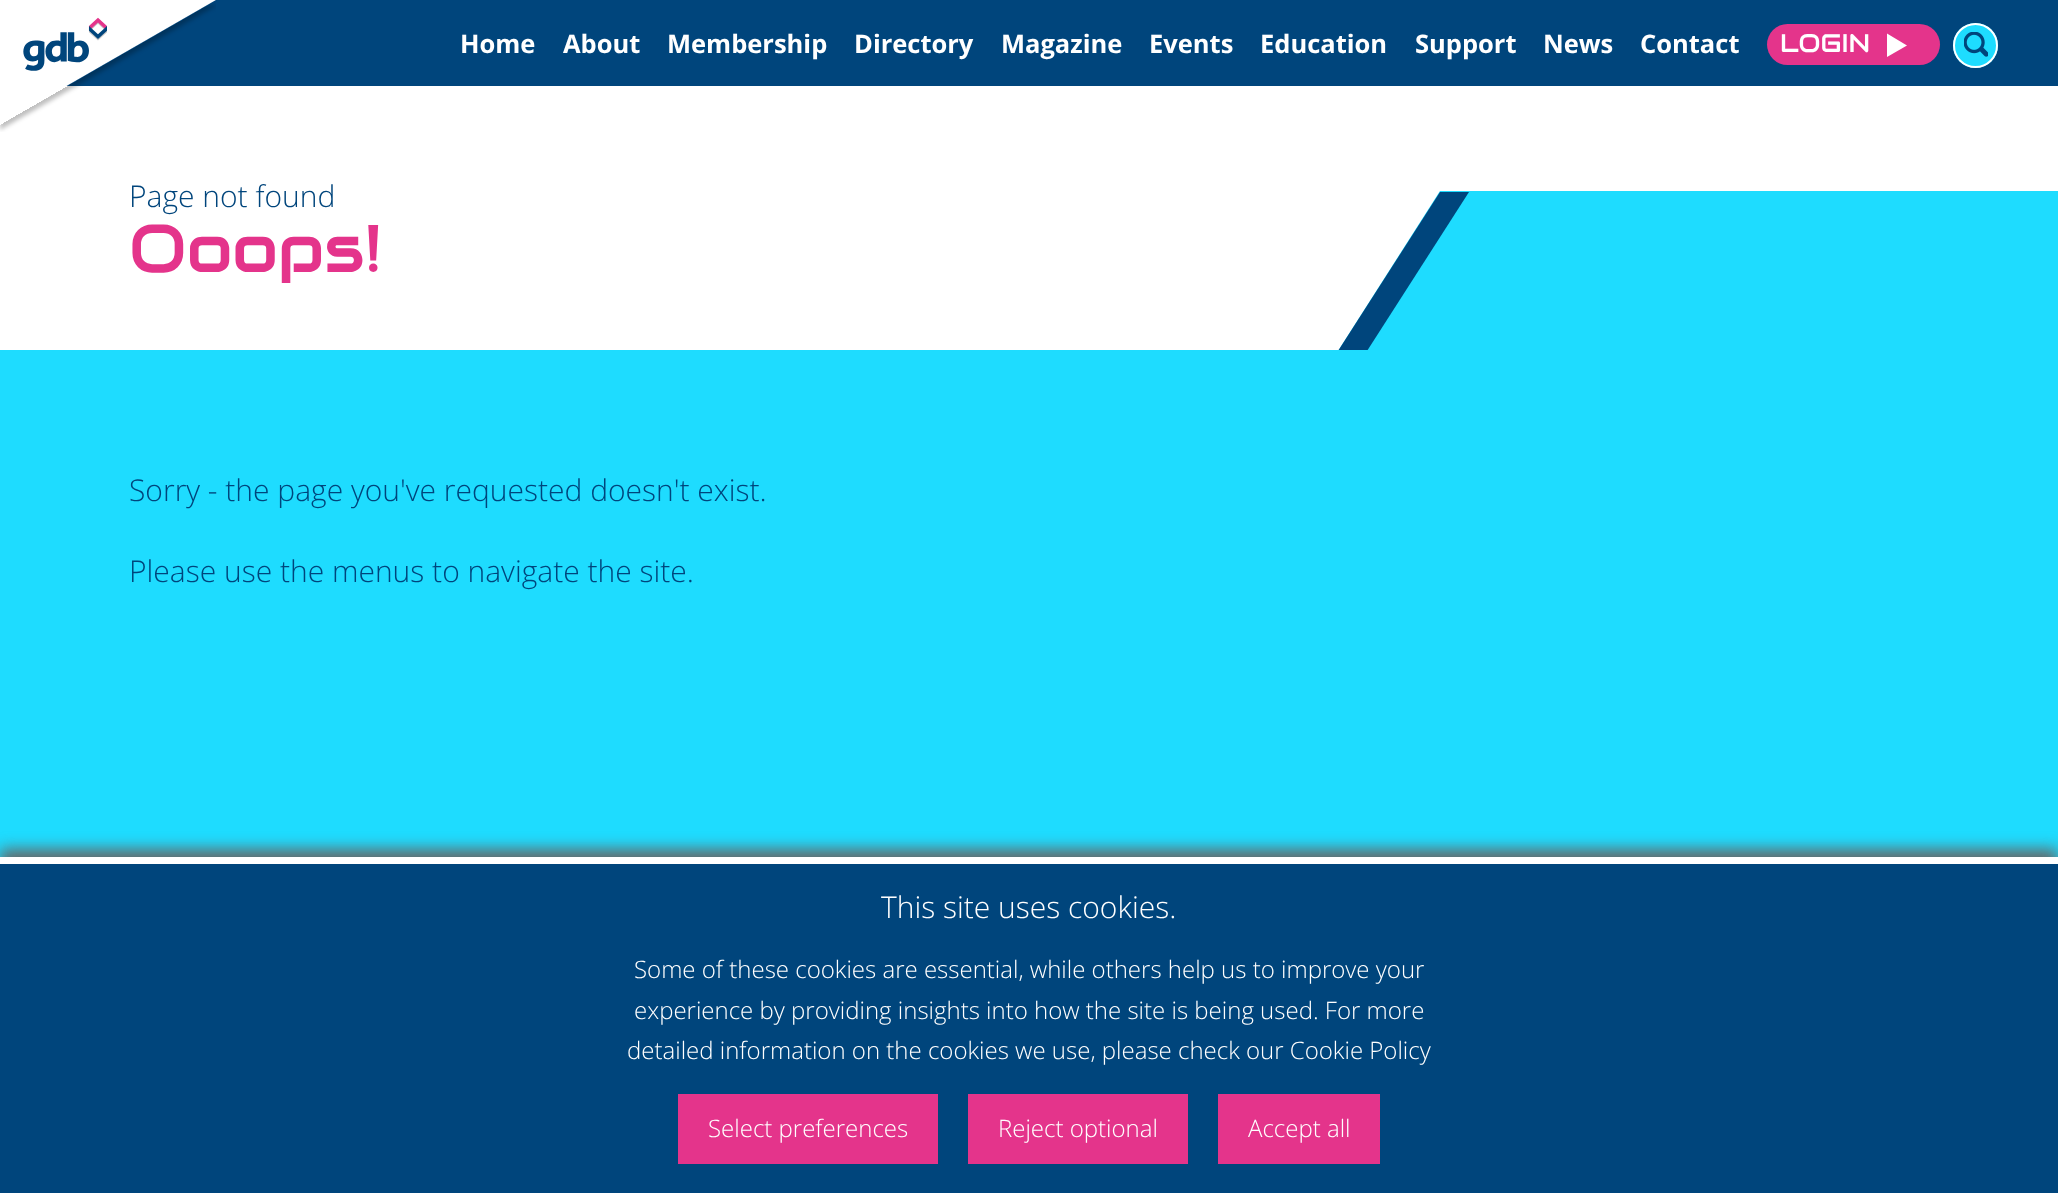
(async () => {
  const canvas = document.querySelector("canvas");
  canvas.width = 2058;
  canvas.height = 1193;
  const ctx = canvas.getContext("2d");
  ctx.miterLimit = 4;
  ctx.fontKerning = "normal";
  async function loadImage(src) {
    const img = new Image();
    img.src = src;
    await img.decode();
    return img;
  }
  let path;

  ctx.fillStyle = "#ffffff";
  ctx.fillRect(0, 0, 2058, 1193);
  ctx.fillStyle = "#00457c";
  ctx.fillRect(66, 0, 1992, 86);
  ctx.drawImage(await loadImage("img/1.png"), 0, 0, 216, 132);
  ctx.fillStyle = "#e4348b";
  ctx.beginPath();
  ctx.roundRect(1767, 24, 173, 41, 20.5);
  ctx.fill();
  ctx.fillStyle = "#ffffff";
  path = new Path2D("M1887 33.5V57L1907 45.5Z");
  ctx.fill(path);
  ctx.fillStyle = "#1edcff";
  ctx.beginPath();
  ctx.arc(1975.5, 45.5, 22.5, 0, Math.PI * 2);
  ctx.fill();
  ctx.drawImage(await loadImage("img/2.png"), 1964, 32, 24, 25);
  ctx.beginPath();
  ctx.arc(1975.5, 45.5, 21.5, 0, Math.PI * 2);
  ctx.strokeStyle = "#ffffff";
  ctx.lineWidth = 2;
  ctx.stroke();
  path = new Path2D("M1338 351H2058V191H1440Z");
  ctx.fill(path);
  ctx.fillStyle = "#00457c";
  path = new Path2D("M1469 192H1440L1338 351H1367Z");
  ctx.fill(path);
  ctx.fillStyle = "#1edcff";
  ctx.fillRect(0, 350, 2058, 507);
  ctx.fillStyle = "#666666";
  ctx.filter = "blur(7.5px)";
  ctx.beginPath();
  ctx.rect(0, 849, 2058, 338);
  ctx.fill();
  ctx.filter = "none";
  for (const [x, y, w, h, color] of [
    [0, 864, 2058, 329, "#00457c"],
    [0, 857, 2058, 7, "#ffffff"],
    [678, 1094, 260, 70, "#e4348b"],
    [968, 1094, 220, 70, "#e4348b"],
    [1218, 1094, 162, 70, "#e4348b"],
  ]) {
    ctx.fillStyle = color;
    ctx.fillRect(x, y, w, h);
  }
  ctx.font = "bold 25.5px Open Sans";
  ctx.fillStyle = "#ffffff";
  for (const [text, x, y] of [
    ["Home", 460, 53],
    ["About", 563, 53],
    ["Membership", 667, 53],
    ["Directory", 854, 53],
    ["Magazine", 1001, 53],
    ["Events", 1149, 53],
    ["Education", 1260, 53],
    ["Support", 1415, 53],
    ["News", 1543, 53],
    ["Contact", 1640, 53],
  ]) {
    ctx.fillText(text, x, y);
  }
  ctx.font = "25.5px Audiowide";
  ctx.fillText("LOGIN", 1780, 52);
  ctx.font = "300 30px Open Sans";
  ctx.fillStyle = "#00457c";
  ctx.fillText("Page not found", 129, 207);
  ctx.font = "67px Audiowide";
  ctx.fillStyle = "#e4348b";
  ctx.fillText("Ooops!", 129, 272);
  ctx.font = "300 30px Open Sans";
  ctx.fillStyle = "#00457c";
  ctx.fillText("Sorry - the page you've requested doesn't exist.", 129, 501);
  ctx.fillText("Please use the menus to navigate the site.", 129, 582);
  ctx.fillStyle = "#ffffff";
  ctx.fillText("This site uses cookies.", 881, 918);
  ctx.font = "300 24px Open Sans";
  for (const [text, x, y] of [
    ["Some of these cookies are essential, while others help us to improve your", 634, 978],
    ["experience by providing insights into how the site is being used. For more", 634, 1019],
    ["detailed information on the cookies we use, please check our Cookie Policy", 627, 1059],
    ["Select preferences", 708, 1137],
    ["Reject optional", 998, 1137],
    ["Accept all", 1248, 1137],
  ]) {
    ctx.fillText(text, x, y);
  }
})();
